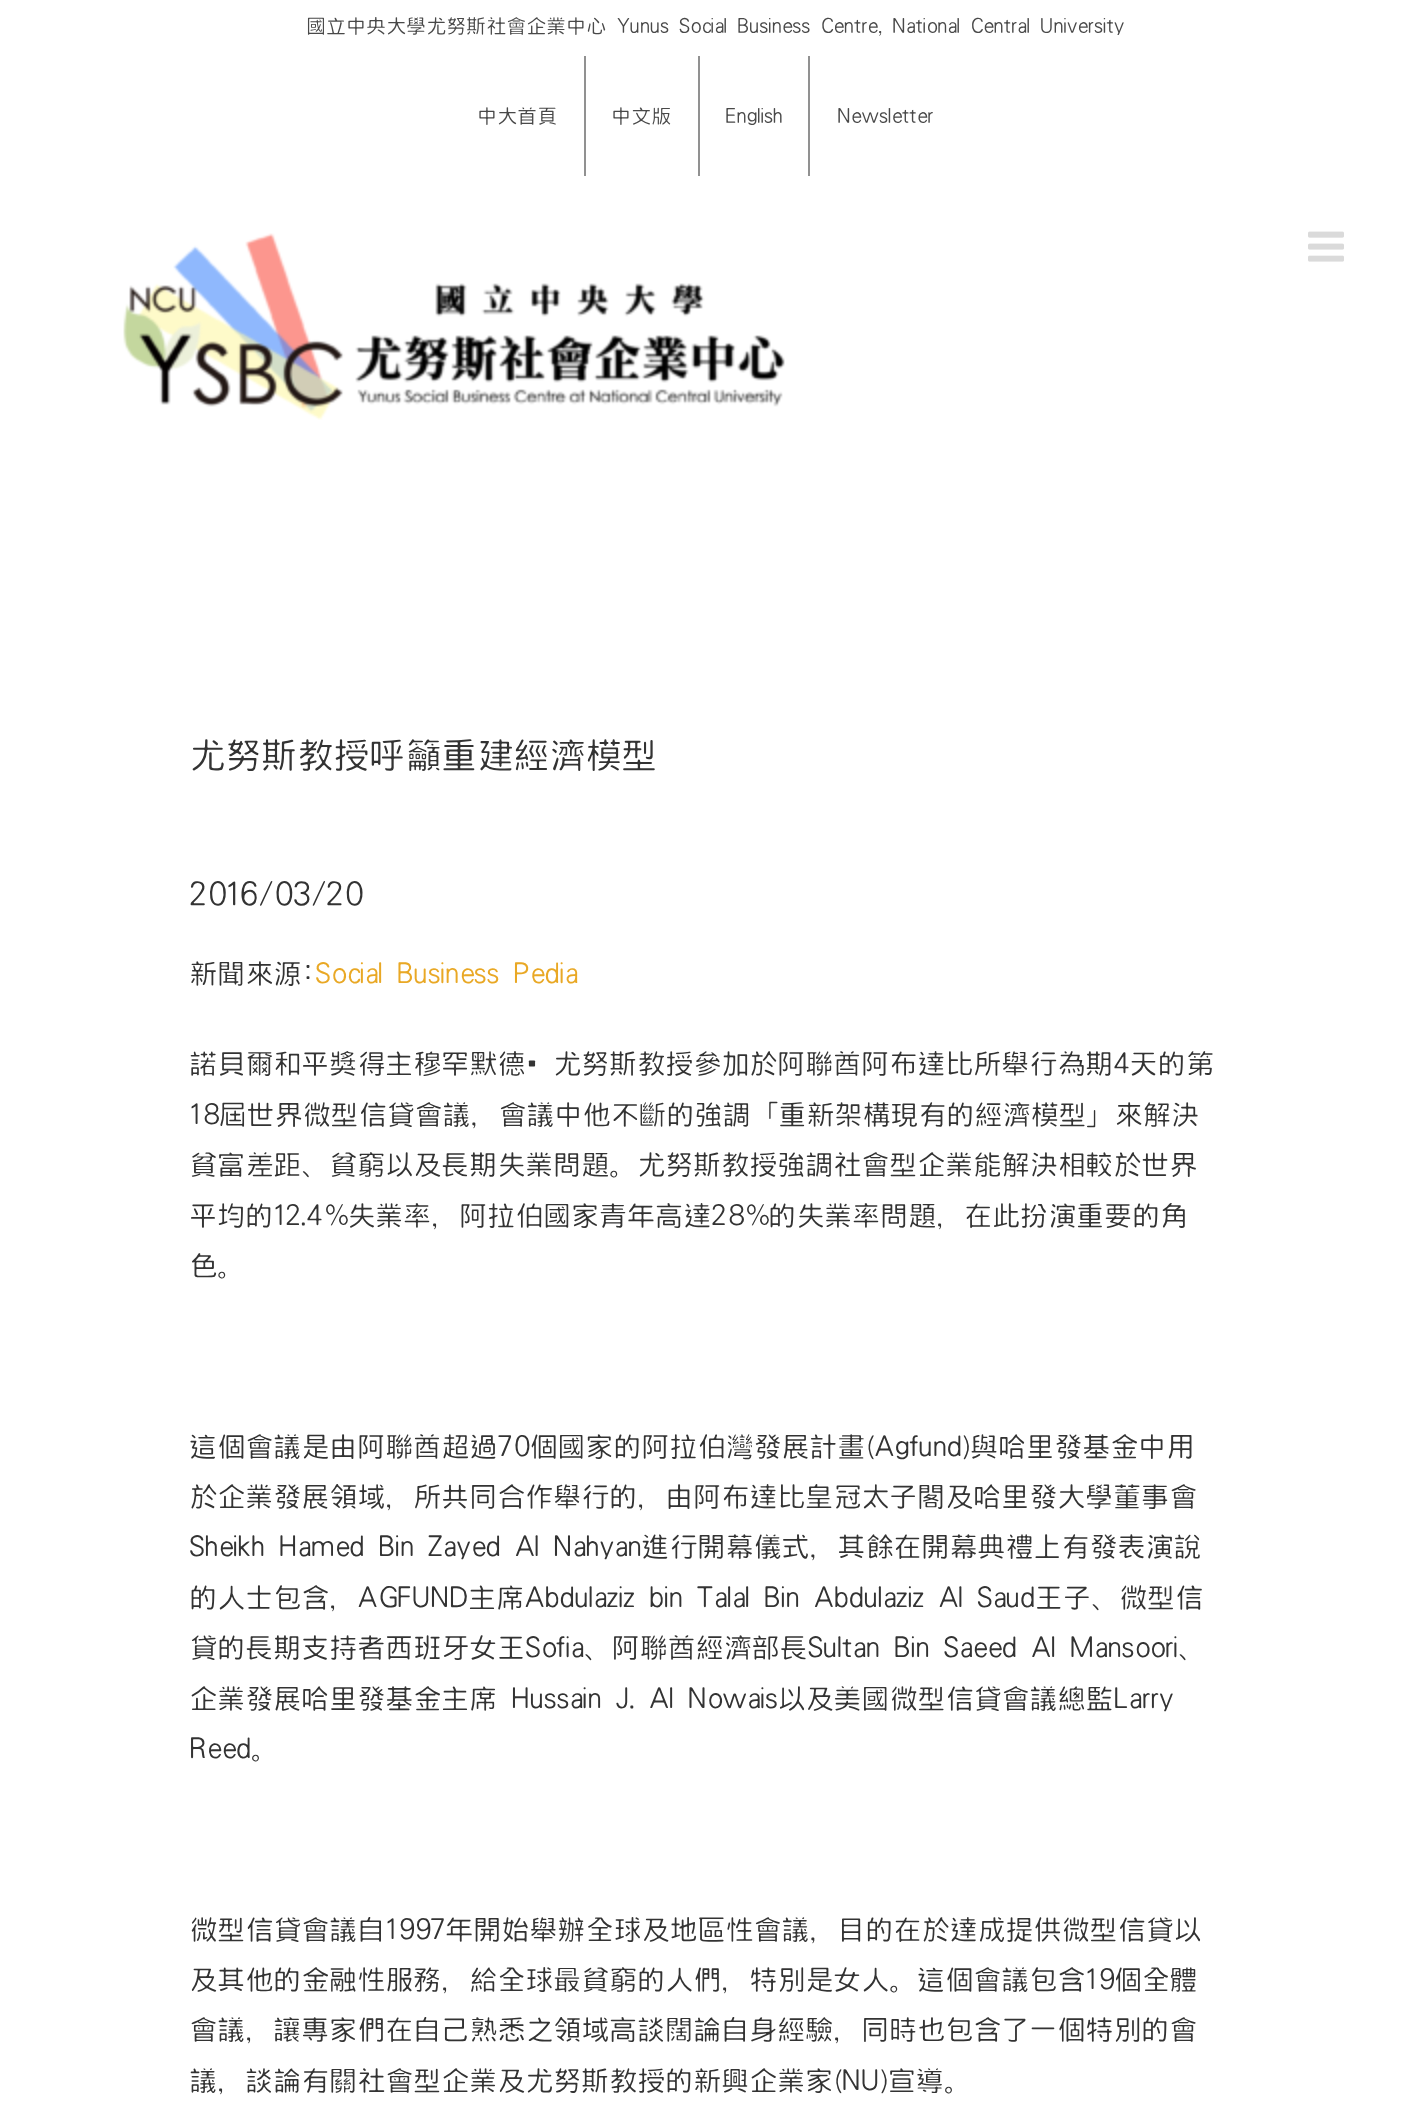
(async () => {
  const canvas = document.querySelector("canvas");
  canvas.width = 1410;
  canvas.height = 2128;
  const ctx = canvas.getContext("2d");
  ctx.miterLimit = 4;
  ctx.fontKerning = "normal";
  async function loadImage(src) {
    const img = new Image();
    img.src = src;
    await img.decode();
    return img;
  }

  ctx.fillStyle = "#ffffff";
  ctx.fillRect(0, 0, 1410, 2128);
  for (const [x, y, w, h, color] of [
    [584, 56, 2, 120, "#919191"],
    [698, 56, 2, 120, "#919191"],
    [808, 56, 2, 120, "#919191"],
  ]) {
    ctx.fillStyle = color;
    ctx.fillRect(x, y, w, h);
  }
  ctx.drawImage(await loadImage("img/1.png"), 123, 233, 662, 187);
  ctx.drawImage(await loadImage("img/2.png"), 1308, 231, 36, 31);
  ctx.font = "300 20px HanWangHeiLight";
  ctx.fillStyle = "#494949";
  for (const [text, x, y] of [
    ["國立中央大學尤努斯社會企業中心 Yunus Social Business Centre, National Central University", 306, 32],
    ["中大首頁", 477, 122],
    ["中文版", 611, 122],
    ["English", 725, 122],
    ["Newsletter", 837, 122],
  ]) {
    ctx.fillText(text, x, y);
  }
  ctx.font = "300 36px HanWangHeiLight";
  ctx.fillStyle = "#333333";
  ctx.fillText("尤努斯教授呼籲重建經濟模型", 189, 766);
  ctx.font = "300 32px HanWangHeiLight";
  ctx.fillText("2016/03/20", 189, 904);
  ctx.font = "300 28px HanWangHeiLight";
  ctx.fillText("新聞來源:", 189, 982);
  ctx.fillStyle = "#e9a825";
  ctx.fillText("Social Business Pedia", 315, 982);
  ctx.fillStyle = "#333333";
  for (const [text, x, y] of [
    ["諾貝爾和平獎得主穆罕默德‧尤努斯教授參加於阿聯酋阿布達比所舉行為期4天的第", 189, 1072],
    ["18屆世界微型信貸會議，會議中他不斷的強調「重新架構現有的經濟模型」來解決", 189, 1123],
    ["貧富差距、貧窮以及長期失業問題。尤努斯教授強調社會型企業能解決相較於世界", 189, 1173],
    ["平均的12.4%失業率，阿拉伯國家青年高達28%的失業率問題，在此扮演重要的角", 189, 1224],
    ["色。", 189, 1274],
    ["這個會議是由阿聯酋超過70個國家的阿拉伯灣發展計畫(Agfund)與哈里發基金中用", 189, 1455],
    ["於企業發展領域，所共同合作舉行的，由阿布達比皇冠太子閣及哈里發大學董事會", 189, 1505],
    ["Sheikh Hamed Bin Zayed Al Nahyan進行開幕儀式，其餘在開幕典禮上有發表演說", 189, 1555],
    ["的人士包含，AGFUND主席Abdulaziz bin Talal Bin Abdulaziz Al Saud王子、微型信", 189, 1606],
    ["貸的長期支持者西班牙女王Sofia、阿聯酋經濟部長Sultan Bin Saeed Al Mansoori、", 189, 1656],
    ["企業發展哈里發基金主席 Hussain J. Al Nowais以及美國微型信貸會議總監Larry", 189, 1707],
    ["Reed。", 189, 1757],
    ["微型信貸會議自1997年開始舉辦全球及地區性會議，目的在於達成提供微型信貸以", 189, 1938],
    ["及其他的金融性服務，給全球最貧窮的人們，特別是女人。這個會議包含19個全體", 189, 1988],
    ["會議，讓專家們在自己熟悉之領域高談闊論自身經驗，同時也包含了一個特別的會", 189, 2038],
    ["議，談論有關社會型企業及尤努斯教授的新興企業家(NU)宣導。", 189, 2089],
  ]) {
    ctx.fillText(text, x, y);
  }
})();
